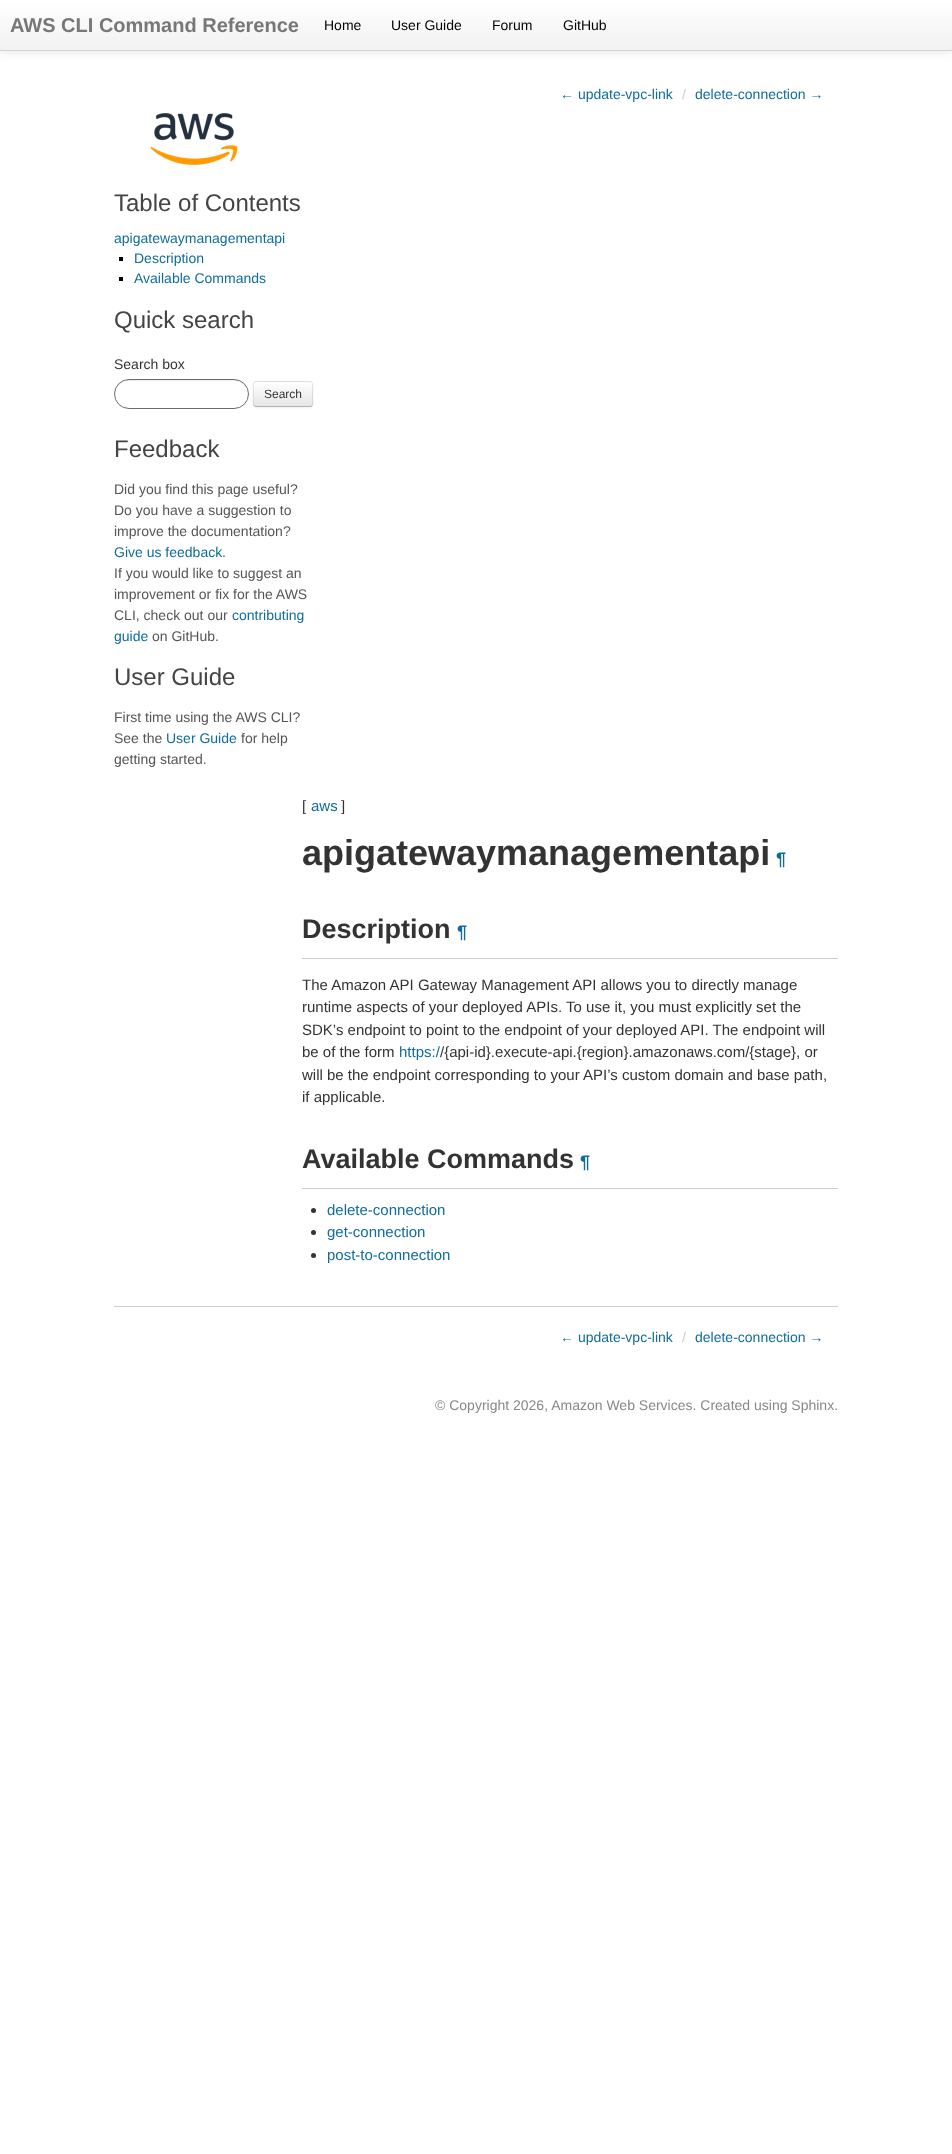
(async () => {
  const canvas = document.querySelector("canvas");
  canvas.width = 952;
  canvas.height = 2154;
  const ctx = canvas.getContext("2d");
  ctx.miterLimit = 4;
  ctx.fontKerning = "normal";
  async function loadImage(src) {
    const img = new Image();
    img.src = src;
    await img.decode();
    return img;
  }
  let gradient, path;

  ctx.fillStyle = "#ffffff";
  ctx.fillRect(0, 0, 952, 2154);
  ctx.fillStyle = "rgba(0, 0, 0, 0.1)";
  ctx.filter = "blur(5px)";
  ctx.beginPath();
  ctx.rect(0, 1, 952, 51);
  ctx.fill();
  ctx.filter = "none";
  gradient = ctx.createLinearGradient(476, 0, 476, 50);
  gradient.addColorStop(0, "#ffffff");
  gradient.addColorStop(1, "#f2f2f2");
  ctx.fillStyle = gradient;
  ctx.fillRect(0, 0, 952, 50);
  ctx.fillStyle = "#d4d4d4";
  ctx.fillRect(0, 50, 952, 1);
  ctx.drawImage(await loadImage("img/1.png"), 150, 113, 88, 52);
  ctx.fillStyle = "#000000";
  ctx.fillRect(119, 257, 4, 4);
  ctx.fillRect(119, 277, 4, 4);
  ctx.fillStyle = "#ececec";
  path = new Path2D("M129 381H234C242 381 248 387 248 394C248 386 242 380 234 380H129C121 380 115 386 115 394C115 387 121 381 129 381Z");
  ctx.fill(path);
  ctx.beginPath();
  ctx.roundRect(114.5, 379.5, 134, 29, 14.5);
  ctx.strokeStyle = "#6c6c6c";
  ctx.stroke();
  ctx.fillStyle = "rgba(0, 0, 0, 0.05)";
  ctx.filter = "blur(1px)";
  ctx.beginPath();
  ctx.roundRect(253, 382, 60, 26, 3);
  ctx.fill();
  ctx.filter = "none";
  ctx.fillStyle = "#f5f5f5";
  ctx.beginPath();
  ctx.roundRect(253, 381, 60, 26, 3);
  ctx.fill();
  ctx.save();
  ctx.beginPath();
  ctx.roundRect(253, 381, 60, 26, 3);
  ctx.clip();
  gradient = ctx.createLinearGradient(283, 382, 283, 406);
  gradient.addColorStop(0, "#ffffff");
  gradient.addColorStop(1, "#e6e6e6");
  ctx.fillStyle = gradient;
  ctx.fillRect(253, 382, 60, 24);
  ctx.restore();
  ctx.fillStyle = "#fefefe";
  path = new Path2D("M256 383H310C311 383 312 384 312 385C312 380 305 382 301 382H265C261 382 254 380 254 385C254 384 255 383 256 383Z");
  ctx.fill(path);
  path = new Path2D("M312 406L310 406.5H256L254 406");
  ctx.strokeStyle = "#b3b3b3";
  ctx.stroke(path);
  path = new Path2D("M254 406C252.5 404 253.5 396.5 253.5 394C253.5 380 251 381.5 265 381.5H301C315 381.5 312.5 380 312.5 394C312.5 396.5 313.5 404 312 406");
  ctx.strokeStyle = "rgba(0, 0, 0, 0.1)";
  ctx.stroke(path);
  ctx.fillStyle = "#cccccc";
  ctx.fillRect(302, 958, 536, 1);
  ctx.fillRect(302, 1188, 536, 1);
  ctx.fillStyle = "#333333";
  ctx.beginPath();
  ctx.arc(313.5, 1210.5, 2.5, 0, Math.PI * 2);
  ctx.fill();
  ctx.beginPath();
  ctx.arc(313.5, 1232.5, 2.5, 0, Math.PI * 2);
  ctx.fill();
  ctx.beginPath();
  ctx.arc(313.5, 1255.5, 2.5, 0, Math.PI * 2);
  ctx.fill();
  ctx.fillStyle = "#cccccc";
  ctx.fillRect(114, 1306, 724, 1);
  ctx.font = "bold 20px Liberation Sans";
  ctx.fillStyle = "#777777";
  ctx.fillText("AWS CLI Command Reference", 10, 32);
  ctx.font = "14px Liberation Sans";
  ctx.fillStyle = "#000000";
  for (const [text, x, y] of [
    ["Home", 324, 30],
    ["User Guide", 391, 30],
    ["Forum", 492, 30],
    ["GitHub", 563, 30],
  ]) {
    ctx.fillText(text, x, y);
  }
  ctx.fillStyle = "#106c9b";
  ctx.fillText("← update-vpc-link", 560, 99);
  ctx.fillStyle = "#cccccc";
  ctx.fillText("/", 682, 99);
  ctx.fillStyle = "#106c9b";
  ctx.fillText("delete-connection →", 695, 99);
  ctx.font = "24px Liberation Sans";
  ctx.fillStyle = "#444444";
  ctx.fillText("Table of Contents", 114, 211);
  ctx.font = "14px Liberation Sans";
  ctx.fillStyle = "#106c9b";
  for (const [text, x, y] of [
    ["apigatewaymanagementapi", 114, 243],
    ["Description", 134, 263],
    ["Available Commands", 134, 283],
  ]) {
    ctx.fillText(text, x, y);
  }
  ctx.font = "24px Liberation Sans";
  ctx.fillStyle = "#444444";
  ctx.fillText("Quick search", 114, 328);
  ctx.font = "14px Liberation Sans";
  ctx.fillStyle = "#333333";
  ctx.fillText("Search box", 114, 369);
  ctx.font = "12px Liberation Sans";
  ctx.fillText("Search", 264, 398);
  ctx.font = "24px Liberation Sans";
  ctx.fillStyle = "#444444";
  ctx.fillText("Feedback", 114, 457);
  ctx.font = "14px Liberation Sans";
  ctx.fillStyle = "#555555";
  for (const [text, x, y] of [
    ["Did you find this page useful?", 114, 494],
    ["Do you have a suggestion to", 114, 515],
    ["improve the documentation?", 114, 536],
  ]) {
    ctx.fillText(text, x, y);
  }
  ctx.fillStyle = "#106c9b";
  ctx.fillText("Give us feedback", 114, 557);
  ctx.fillStyle = "#555555";
  for (const [text, x, y] of [
    [".", 222, 557],
    ["If you would like to suggest an", 114, 578],
    ["improvement or fix for the AWS", 114, 599],
    ["CLI, check out our", 114, 620],
  ]) {
    ctx.fillText(text, x, y);
  }
  ctx.fillStyle = "#106c9b";
  ctx.fillText("contributing", 232, 620);
  ctx.fillText("guide", 114, 641);
  ctx.fillStyle = "#555555";
  ctx.fillText("on GitHub.", 152, 641);
  ctx.font = "24px Liberation Sans";
  ctx.fillStyle = "#444444";
  ctx.fillText("User Guide", 114, 685);
  ctx.font = "14px Liberation Sans";
  ctx.fillStyle = "#555555";
  ctx.fillText("First time using the AWS CLI?", 114, 722);
  ctx.fillText("See the", 114, 743);
  ctx.fillStyle = "#106c9b";
  ctx.fillText("User Guide", 166, 743);
  ctx.fillStyle = "#555555";
  ctx.fillText("for help", 241, 743);
  ctx.fillText("getting started.", 114, 764);
  ctx.font = "15px Liberation Sans";
  ctx.fillStyle = "#333333";
  ctx.fillText("[", 302, 811);
  ctx.fillStyle = "#106c9b";
  ctx.fillText("aws", 311, 811);
  ctx.fillStyle = "#333333";
  ctx.fillText("]", 341, 811);
  ctx.font = "bold 36px Liberation Sans";
  ctx.fillText("apigatewaymanagementapi", 302, 865);
  ctx.font = "bold 18px Liberation Sans";
  ctx.fillStyle = "#106c9b";
  ctx.fillText("¶", 776, 865);
  ctx.font = "bold 27px Liberation Sans";
  ctx.fillStyle = "#333333";
  ctx.fillText("Description", 302, 938);
  ctx.font = "bold 18px Liberation Sans";
  ctx.fillStyle = "#106c9b";
  ctx.fillText("¶", 457, 938);
  ctx.font = "15px Liberation Sans";
  ctx.fillStyle = "#333333";
  for (const [text, x, y] of [
    ["The Amazon API Gateway Management API allows you to directly manage", 302, 990],
    ["runtime aspects of your deployed APIs. To use it, you must explicitly set the", 302, 1012],
    ["SDK’s endpoint to point to the endpoint of your deployed API. The endpoint will", 302, 1035],
    ["be of the form", 302, 1057],
  ]) {
    ctx.fillText(text, x, y);
  }
  ctx.fillStyle = "#106c9b";
  ctx.fillText("https:/", 399, 1057);
  ctx.fillStyle = "#333333";
  for (const [text, x, y] of [
    ["/{api-id}.execute-api.{region}.amazonaws.com/{stage}, or", 440, 1057],
    ["will be the endpoint corresponding to your API’s custom domain and base path,", 302, 1080],
    ["if applicable.", 302, 1102],
  ]) {
    ctx.fillText(text, x, y);
  }
  ctx.font = "bold 27px Liberation Sans";
  ctx.fillText("Available Commands", 302, 1168);
  ctx.font = "bold 18px Liberation Sans";
  ctx.fillStyle = "#106c9b";
  ctx.fillText("¶", 580, 1168);
  ctx.font = "15px Liberation Sans";
  for (const [text, x, y] of [
    ["delete-connection", 327, 1215],
    ["get-connection", 327, 1237],
    ["post-to-connection", 327, 1260],
  ]) {
    ctx.fillText(text, x, y);
  }
  ctx.font = "14px Liberation Sans";
  ctx.fillText("← update-vpc-link", 560, 1342);
  ctx.fillStyle = "#cccccc";
  ctx.fillText("/", 682, 1342);
  ctx.fillStyle = "#106c9b";
  ctx.fillText("delete-connection →", 695, 1342);
  ctx.fillStyle = "#888888";
  ctx.fillText("© Copyright 2026, Amazon Web Services. Created using Sphinx.", 435, 1410);
})();
